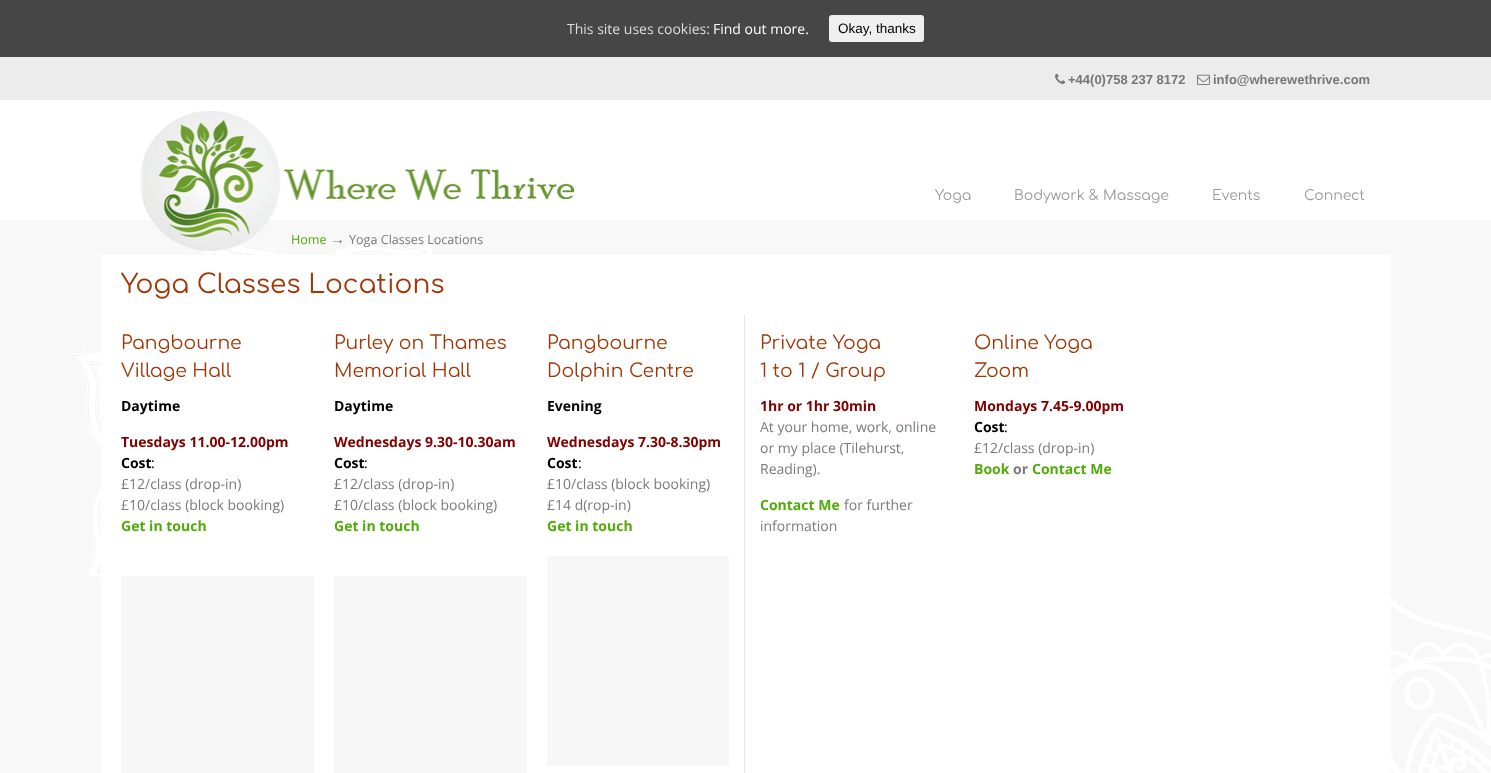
(async () => {
  const canvas = document.querySelector("canvas");
  canvas.width = 1491;
  canvas.height = 773;
  const ctx = canvas.getContext("2d");
  ctx.miterLimit = 4;
  ctx.fontKerning = "normal";
  async function loadImage(src) {
    const img = new Image();
    img.src = src;
    await img.decode();
    return img;
  }

  ctx.fillStyle = "#f8f8f8";
  ctx.fillRect(0, 0, 1491, 773);
  ctx.fillStyle = "#464646";
  ctx.fillRect(0, 0, 1491, 57);
  ctx.fillStyle = "#efefef";
  ctx.beginPath();
  ctx.roundRect(829, 15, 95, 27, 3);
  ctx.fill();
  ctx.fillStyle = "#ffffff";
  ctx.fillRect(0, 100, 1491, 120);
  ctx.fillStyle = "#ececec";
  ctx.fillRect(0, 57, 1491, 43);
  ctx.drawImage(await loadImage("img/1.png"), 1055, 73, 11, 11);
  ctx.drawImage(await loadImage("img/2.png"), 1197, 74, 13, 11);
  ctx.drawImage(await loadImage("img/4.png"), 72, 234, 1419, 539);
  for (const [x, y, w, h, color] of [
    [101, 255, 1290, 518, "#ffffff"],
    [121, 576, 193, 197, "#f7f7f7"],
    [334, 576, 193, 197, "#f7f7f7"],
    [744, 315, 1, 458, "#e5e5e5"],
    [547, 556, 182, 210, "#f7f7f7"],
  ]) {
    ctx.fillStyle = color;
    ctx.fillRect(x, y, w, h);
  }
  ctx.font = "14px Open Sans";
  ctx.fillStyle = "#dddddd";
  ctx.fillText("This site uses cookies:", 567, 34);
  ctx.fillStyle = "#ffffff";
  ctx.fillText("Find out more.", 713, 34);
  ctx.font = "13.5px Liberation Sans";
  ctx.fillStyle = "#000000";
  ctx.fillText("Okay, thanks", 838, 33);
  ctx.font = "bold 13px Liberation Sans";
  ctx.fillStyle = "#777777";
  ctx.fillText("+44(0)758 237 8172", 1068, 84);
  ctx.fillText("info@wherewethrive.com", 1213, 84);
  ctx.font = "14px Comfortaa";
  ctx.fillStyle = "#999999";
  for (const [text, x, y] of [
    ["Yoga", 935, 200],
    ["Bodywork & Massage", 1014, 200],
    ["Events", 1212, 200],
    ["Connect", 1304, 200],
  ]) {
    ctx.fillText(text, x, y);
  }
  ctx.font = "12.6px Open Sans";
  ctx.fillStyle = "#52ab09";
  ctx.fillText("Home", 291, 244);
  ctx.font = "15px Liberation Serif";
  ctx.fillStyle = "#7d787d";
  ctx.fillText("→", 330, 244);
  ctx.font = "12.6px Open Sans";
  ctx.fillText("Yoga Classes Locations", 349, 244);
  ctx.drawImage(await loadImage("img/3.png"), 140, 111, 435, 140);
  ctx.font = "26.4px Comfortaa";
  ctx.fillStyle = "#a13706";
  ctx.fillText("Yoga Classes Locations", 121, 293);
  ctx.font = "18.75px Comfortaa";
  ctx.fillText("Pangbourne", 121, 349);
  ctx.fillText("Village Hall", 121, 377);
  ctx.font = "bold 14px Open Sans";
  ctx.fillStyle = "#000000";
  ctx.fillText("Daytime", 121, 411);
  ctx.fillStyle = "#800000";
  ctx.fillText("Tuesdays 11.00-12.00pm", 121, 447);
  ctx.fillStyle = "#000000";
  ctx.fillText("Cost", 121, 468);
  ctx.font = "14px Open Sans";
  ctx.fillText(":", 151, 468);
  ctx.font = "14px 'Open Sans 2'";
  ctx.fillStyle = "#7d787d";
  ctx.fillText("£", 121, 489);
  ctx.font = "14px Open Sans";
  ctx.fillText("12/class (drop-in)", 129, 489);
  ctx.font = "14px 'Open Sans 2'";
  ctx.fillText("£", 121, 510);
  ctx.font = "14px Open Sans";
  ctx.fillText("10/class (block booking)", 129, 510);
  ctx.font = "bold 14px Open Sans";
  ctx.fillStyle = "#52ab09";
  ctx.fillText("Get in touch", 121, 531);
  ctx.font = "18.75px Comfortaa";
  ctx.fillStyle = "#a13706";
  ctx.fillText("Purley on Thames", 334, 349);
  ctx.fillText("Memorial Hall", 334, 377);
  ctx.font = "bold 14px Open Sans";
  ctx.fillStyle = "#000000";
  ctx.fillText("Daytime", 334, 411);
  ctx.fillStyle = "#800000";
  ctx.fillText("Wednesdays 9.30-10.30am", 334, 447);
  ctx.fillStyle = "#000000";
  ctx.fillText("Cost", 334, 468);
  ctx.font = "14px Open Sans";
  ctx.fillText(":", 364, 468);
  ctx.font = "14px 'Open Sans 2'";
  ctx.fillStyle = "#7d787d";
  ctx.fillText("£", 334, 489);
  ctx.font = "14px Open Sans";
  ctx.fillText("12/class (drop-in)", 342, 489);
  ctx.font = "14px 'Open Sans 2'";
  ctx.fillText("£", 334, 510);
  ctx.font = "14px Open Sans";
  ctx.fillText("10/class (block booking)", 342, 510);
  ctx.font = "bold 14px Open Sans";
  ctx.fillStyle = "#52ab09";
  ctx.fillText("Get in touch", 334, 531);
  ctx.font = "18.75px Comfortaa";
  ctx.fillStyle = "#a13706";
  ctx.fillText("Pangbourne", 547, 349);
  ctx.fillText("Dolphin Centre", 547, 377);
  ctx.font = "bold 14px Open Sans";
  ctx.fillStyle = "#000000";
  ctx.fillText("Evening", 547, 411);
  ctx.fillStyle = "#800000";
  ctx.fillText("Wednesdays 7.30-8.30pm", 547, 447);
  ctx.fillStyle = "#000000";
  ctx.fillText("Cost", 547, 468);
  ctx.font = "14px Open Sans";
  ctx.fillText(":", 578, 468);
  ctx.font = "14px 'Open Sans 2'";
  ctx.fillStyle = "#7d787d";
  ctx.fillText("£", 547, 489);
  ctx.font = "14px Open Sans";
  ctx.fillText("10/class (block booking)", 555, 489);
  ctx.font = "14px 'Open Sans 2'";
  ctx.fillText("£", 547, 510);
  ctx.font = "14px Open Sans";
  ctx.fillText("14 d(rop-in)", 555, 510);
  ctx.font = "bold 14px Open Sans";
  ctx.fillStyle = "#52ab09";
  ctx.fillText("Get in touch", 547, 531);
  ctx.font = "18.75px Comfortaa";
  ctx.fillStyle = "#a13706";
  ctx.fillText("Private Yoga", 760, 349);
  ctx.fillText("1 to 1 / Group", 760, 377);
  ctx.font = "bold 14px Open Sans";
  ctx.fillStyle = "#800000";
  ctx.fillText("1hr or 1hr 30min", 760, 411);
  ctx.font = "14px Open Sans";
  ctx.fillStyle = "#7d787d";
  for (const [text, x, y] of [
    ["At your home, work, online", 760, 432],
    ["or my place (Tilehurst,", 760, 453],
    ["Reading).", 760, 474],
  ]) {
    ctx.fillText(text, x, y);
  }
  ctx.font = "bold 14px Open Sans";
  ctx.fillStyle = "#52ab09";
  ctx.fillText("Contact Me", 760, 510);
  ctx.font = "14px Open Sans";
  ctx.fillStyle = "#7d787d";
  ctx.fillText("for further", 844, 510);
  ctx.fillText("information", 760, 531);
  ctx.font = "18.75px Comfortaa";
  ctx.fillStyle = "#a13706";
  ctx.fillText("Online Yoga", 974, 349);
  ctx.fillText("Zoom", 974, 377);
  ctx.font = "bold 14px Open Sans";
  ctx.fillStyle = "#800000";
  ctx.fillText("Mondays 7.45-9.00pm", 974, 411);
  ctx.fillStyle = "#000000";
  ctx.fillText("Cost", 974, 432);
  ctx.font = "14px Open Sans";
  ctx.fillText(":", 1004, 432);
  ctx.font = "14px 'Open Sans 2'";
  ctx.fillStyle = "#7d787d";
  ctx.fillText("£", 974, 453);
  ctx.font = "14px Open Sans";
  ctx.fillText("12/class (drop-in)", 982, 453);
  ctx.font = "bold 14px Open Sans";
  ctx.fillStyle = "#52ab09";
  ctx.fillText("Book", 974, 474);
  ctx.fillStyle = "#7d787d";
  ctx.fillText("or", 1013, 474);
  ctx.fillStyle = "#52ab09";
  ctx.fillText("Contact Me", 1032, 474);
})();
